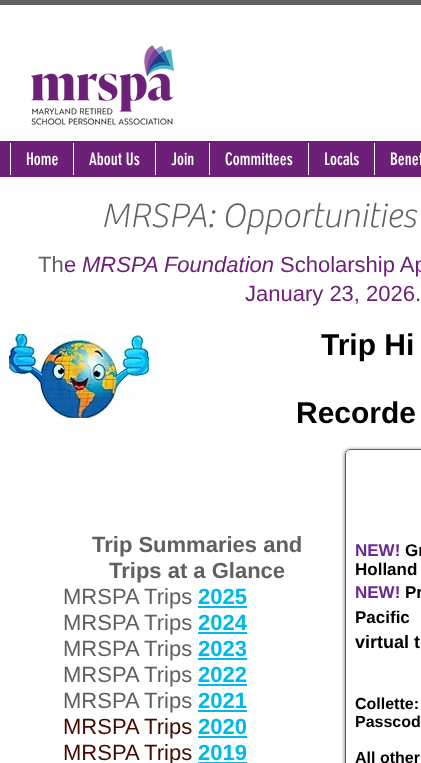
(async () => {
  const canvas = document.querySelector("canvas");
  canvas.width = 421;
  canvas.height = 763;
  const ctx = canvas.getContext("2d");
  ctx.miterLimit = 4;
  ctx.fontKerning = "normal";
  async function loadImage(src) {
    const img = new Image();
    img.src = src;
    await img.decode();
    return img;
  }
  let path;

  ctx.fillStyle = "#ffffff";
  ctx.fillRect(0, 0, 421, 763);
  ctx.fillStyle = "#606060";
  ctx.fillRect(0, 0, 421, 5);
  ctx.drawImage(await loadImage("img/1.png"), 31, 45, 144, 80);
  for (const [x, y, w, h, color] of [
    [0, 141, 421, 36, "#6d2077"],
    [10, 143, 1, 32, "#ffffff"],
    [73, 143, 1, 32, "#ffffff"],
    [155, 143, 1, 32, "#ffffff"],
    [209, 143, 1, 32, "#ffffff"],
    [308, 143, 1, 32, "#ffffff"],
    [374, 143, 1, 32, "#ffffff"],
  ]) {
    ctx.fillStyle = color;
    ctx.fillRect(x, y, w, h);
  }
  ctx.drawImage(await loadImage("img/2.png"), 9, 334, 140, 84);
  for (const [x, y, w, h, color] of [
    [198, 606, 49, 2, "#00b9e8"],
    [198, 632, 49, 2, "#00b9e8"],
    [198, 658, 49, 2, "#00b9e8"],
    [198, 684, 49, 2, "#00b9e8"],
    [198, 710, 49, 2, "#00b9e8"],
    [198, 736, 49, 2, "#00b9e8"],
    [198, 762, 49, 1, "#00b9e8"],
  ]) {
    ctx.fillStyle = color;
    ctx.fillRect(x, y, w, h);
  }
  ctx.save();
  path = new Path2D("M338 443H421V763H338ZM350 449H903C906 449 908 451 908 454V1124C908 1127 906 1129 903 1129H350C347 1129 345 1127 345 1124V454C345 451 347 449 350 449Z");
  ctx.clip(path, "evenodd");
  ctx.fillStyle = "rgba(0, 0, 0, 0.6)";
  ctx.filter = "blur(2px)";
  ctx.beginPath();
  ctx.roundRect(345, 450, 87, 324, 5);
  ctx.fill();
  ctx.filter = "none";
  ctx.restore();
  ctx.beginPath();
  ctx.roundRect(345.5, 449.5, 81, 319, 4.5);
  ctx.strokeStyle = "#606060";
  ctx.stroke();
  ctx.font = "17px 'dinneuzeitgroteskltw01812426'";
  ctx.fillStyle = "#ffffff";
  for (const [text, x, y] of [
    ["Home", 26, 165],
    ["About Us", 89, 165],
    ["Join", 171, 165],
    ["Committees", 225, 165],
    ["Locals", 324, 165],
    ["Benef", 390, 165],
  ]) {
    ctx.fillText(text, x, y);
  }
  ctx.font = "100 35px 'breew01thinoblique'";
  ctx.fillStyle = "#606060";
  ctx.fillText("MRSPA: Opportunities", 101, 227);
  ctx.font = "22px Liberation Sans";
  ctx.fillText("Th", 38, 272);
  ctx.fillStyle = "#6d2077";
  ctx.fillText("e", 64, 272);
  ctx.font = "italic 22px Liberation Sans";
  ctx.fillText("MRSPA Foundation", 82, 272);
  ctx.font = "22px Liberation Sans";
  ctx.fillText("Scholarship Ap", 280, 272);
  ctx.fillText("January 23, 2026.", 245, 301);
  ctx.font = "bold 30px Liberation Sans";
  ctx.fillStyle = "#000000";
  ctx.fillText("Trip Hi", 321, 355);
  ctx.fillText("Recorde", 296, 423);
  ctx.font = "bold 22px Liberation Sans";
  ctx.fillStyle = "#606060";
  ctx.fillText("Trip Summaries and", 92, 552);
  ctx.fillText("Trips at a Glance", 109, 578);
  ctx.font = "22px Liberation Sans";
  ctx.fillText("MRSPA Trips", 63, 604);
  ctx.font = "bold 22px Liberation Sans";
  ctx.fillStyle = "#00b9e8";
  ctx.fillText("2025", 198, 604);
  ctx.font = "22px Liberation Sans";
  ctx.fillStyle = "#606060";
  ctx.fillText("MRSPA Trips", 63, 630);
  ctx.font = "bold 22px Liberation Sans";
  ctx.fillStyle = "#00b9e8";
  ctx.fillText("2024", 198, 630);
  ctx.font = "22px Liberation Sans";
  ctx.fillStyle = "#606060";
  ctx.fillText("MRSPA Trips", 63, 656);
  ctx.font = "bold 22px Liberation Sans";
  ctx.fillStyle = "#00b9e8";
  ctx.fillText("2023", 198, 656);
  ctx.font = "22px Liberation Sans";
  ctx.fillStyle = "#606060";
  ctx.fillText("MRSPA Trips", 63, 682);
  ctx.font = "bold 22px Liberation Sans";
  ctx.fillStyle = "#00b9e8";
  ctx.fillText("2022", 198, 682);
  ctx.font = "22px Liberation Sans";
  ctx.fillStyle = "#606060";
  ctx.fillText("MRSPA Trips", 63, 708);
  ctx.font = "bold 22px Liberation Sans";
  ctx.fillStyle = "#00b9e8";
  ctx.fillText("2021", 198, 708);
  ctx.font = "22px Liberation Sans";
  ctx.fillStyle = "#460b00";
  ctx.fillText("MRSPA Trips", 63, 734);
  ctx.font = "bold 22px Liberation Sans";
  ctx.fillStyle = "#00b9e8";
  ctx.fillText("2020", 198, 734);
  ctx.font = "22px Liberation Sans";
  ctx.fillStyle = "#460b00";
  ctx.fillText("MRSPA Trips", 63, 760);
  ctx.font = "bold 22px Liberation Sans";
  ctx.fillStyle = "#00b9e8";
  ctx.fillText("2019", 198, 760);
  ctx.font = "bold 17px Liberation Sans";
  ctx.fillStyle = "#682793";
  ctx.fillText("NEW!", 355, 556);
  ctx.fillStyle = "#000000";
  ctx.fillText("Gr", 405, 556);
  ctx.fillText("Holland", 355, 575);
  ctx.fillStyle = "#682793";
  ctx.fillText("NEW!", 355, 598);
  ctx.fillStyle = "#000000";
  ctx.fillText("Pr", 405, 598);
  ctx.fillText("Pacific", 355, 623);
  ctx.font = "bold 18px Liberation Sans";
  ctx.fillText("virtual t", 355, 648);
  ctx.font = "bold 16px Liberation Sans";
  for (const [text, x, y] of [
    ["Collette:", 355, 709],
    ["Passcod", 355, 727],
    ["All other", 355, 763],
  ]) {
    ctx.fillText(text, x, y);
  }
})();
